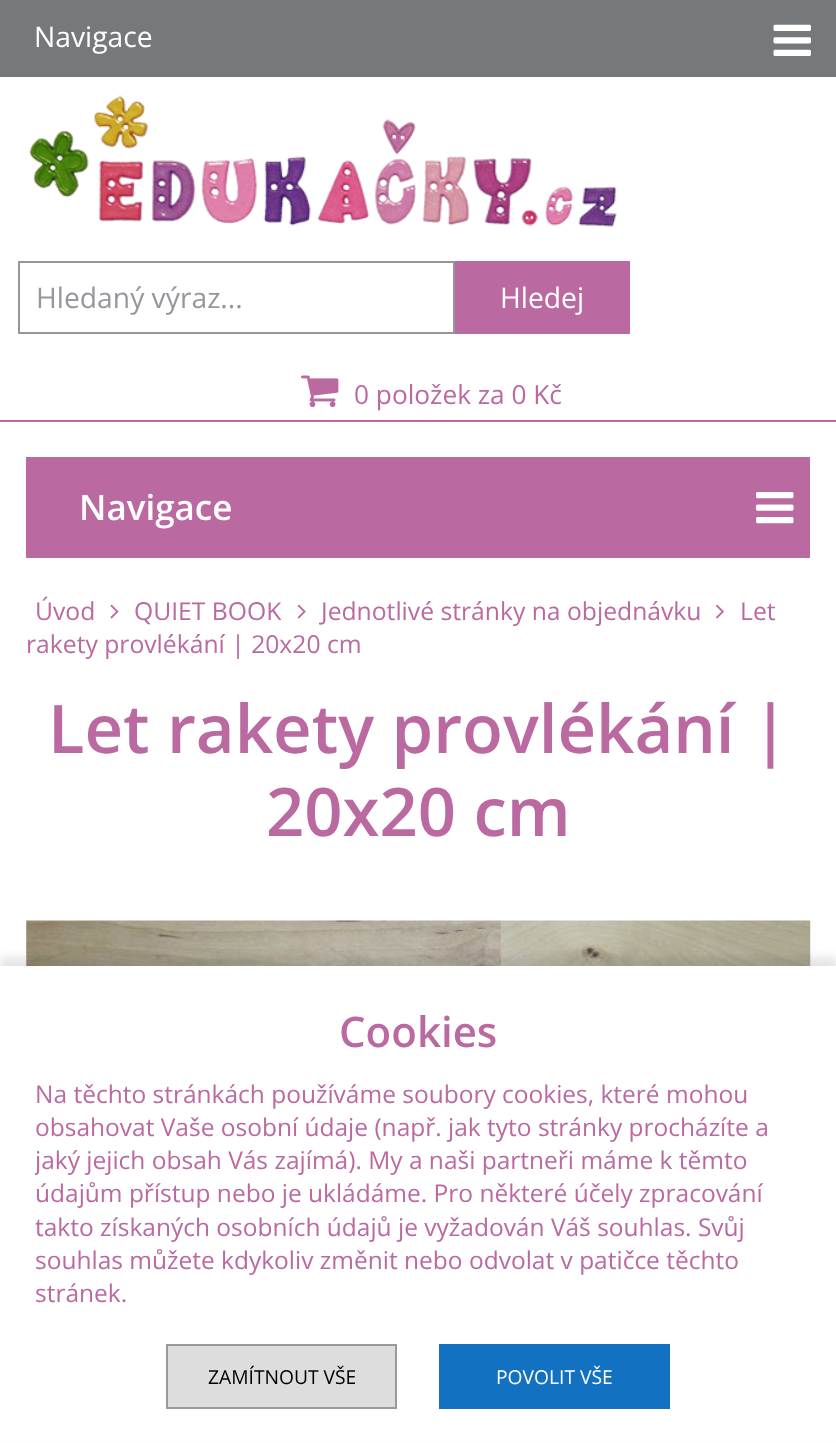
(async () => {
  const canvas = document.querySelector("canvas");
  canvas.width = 836;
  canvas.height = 1443;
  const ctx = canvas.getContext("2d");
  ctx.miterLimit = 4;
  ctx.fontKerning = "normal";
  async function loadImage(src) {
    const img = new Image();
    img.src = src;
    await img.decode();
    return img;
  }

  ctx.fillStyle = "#ffffff";
  ctx.fillRect(0, 0, 836, 1443);
  ctx.fillStyle = "#75797c";
  ctx.fillRect(0, 0, 836, 77);
  ctx.drawImage(await loadImage("img/1.png"), 773, 24, 38, 32);
  ctx.fillStyle = "#ba69a1";
  ctx.fillRect(0, 420, 836, 2);
  ctx.drawImage(await loadImage("img/2.png"), 29, 95, 588, 132);
  ctx.strokeStyle = "#97969c";
  ctx.lineWidth = 2;
  ctx.strokeRect(19, 262, 435, 71);
  ctx.fillRect(455, 261, 175, 73);
  ctx.drawImage(await loadImage("img/3.png"), 301, 375, 38, 33);
  ctx.fillRect(26, 457, 784, 101);
  ctx.drawImage(await loadImage("img/4.png"), 756, 492, 38, 32);
  ctx.drawImage(await loadImage("img/5.png"), 297, 604, 9, 15);
  ctx.drawImage(await loadImage("img/6.png"), 716, 604, 8, 15);
  ctx.drawImage(await loadImage("img/7.png"), 110, 604, 9, 15);
  ctx.drawImage(await loadImage("img/8.png"), 26, 920, 785, 46);
  ctx.fillStyle = "rgba(0, 0, 0, 0.1)";
  ctx.filter = "blur(4.5px)";
  ctx.beginPath();
  ctx.rect(0, 957, 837, 478);
  ctx.fill();
  ctx.filter = "none";
  ctx.fillStyle = "#ffffff";
  ctx.fillRect(0, 966, 836, 475);
  ctx.fillStyle = "#dddddd";
  ctx.beginPath();
  ctx.rect(167, 1345, 229, 63);
  ctx.fill();
  ctx.strokeStyle = "#999999";
  ctx.stroke();
  ctx.fillStyle = "#1371c2";
  ctx.fillRect(439, 1344, 231, 65);
  ctx.font = "28.25px Open Sans";
  ctx.fillStyle = "#ffffff";
  ctx.fillText("Navigace", 34, 47);
  ctx.fillStyle = "#97969c";
  ctx.fillText("Hledaný výraz...", 36, 308);
  ctx.fillStyle = "#ffffff";
  ctx.fillText("Hledej", 500, 308);
  ctx.font = "26.25px Open Sans";
  ctx.fillStyle = "#ba69a1";
  ctx.fillText("0 položek za 0 Kč", 354, 404);
  ctx.font = "600 35px Open Sans";
  ctx.fillStyle = "#ffffff";
  ctx.fillText("Navigace", 79, 520);
  ctx.font = "24.7px Open Sans";
  ctx.fillStyle = "#ba69a1";
  for (const [text, x, y] of [
    ["Úvod", 35, 620],
    ["Jednotlivé stránky na objednávku", 321, 620],
    ["Let", 740, 620],
    ["rakety provlékání | 20x20 cm", 26, 653],
    ["QUIET BOOK", 134, 620],
  ]) {
    ctx.fillText(text, x, y);
  }
  ctx.font = "600 67px Open Sans";
  ctx.fillText("Let rakety provlékání |", 48, 753);
  ctx.fillText("20x20 cm", 266, 836);
  ctx.font = "600 42px Open Sans";
  ctx.fillText("Cookies", 339, 1047);
  ctx.font = "24.5px Open Sans";
  ctx.fillText("Na těchto stránkách používáme soubory cookies, které mohou", 35, 1103);
  ctx.fillText("obsahovat Vaše osobní údaje (např. jak tyto stránky procházíte a", 35, 1136);
  ctx.save();
  ctx.beginPath();
  ctx.rect(35, 1001, 767, 308);
  ctx.clip();
  ctx.fillText("jaký jejich obsah Vás zajímá). My a naši partneři máme k těmto", 35, 1169);
  ctx.restore();
  for (const [text, x, y] of [
    ["údajům přístup nebo je ukládáme. Pro některé účely zpracování", 35, 1202],
    ["takto získaných osobních údajů je vyžadován Váš souhlas. Svůj", 35, 1236],
    ["souhlas můžete kdykoliv změnit nebo odvolat v patičce těchto", 35, 1269],
    ["stránek.", 35, 1302],
  ]) {
    ctx.fillText(text, x, y);
  }
  ctx.font = "19.25px Open Sans";
  ctx.fillStyle = "#000000";
  ctx.fillText("ZAMÍTNOUT VŠE", 208, 1384);
  ctx.fillStyle = "#ffffff";
  ctx.fillText("POVOLIT VŠE", 496, 1384);
})();
